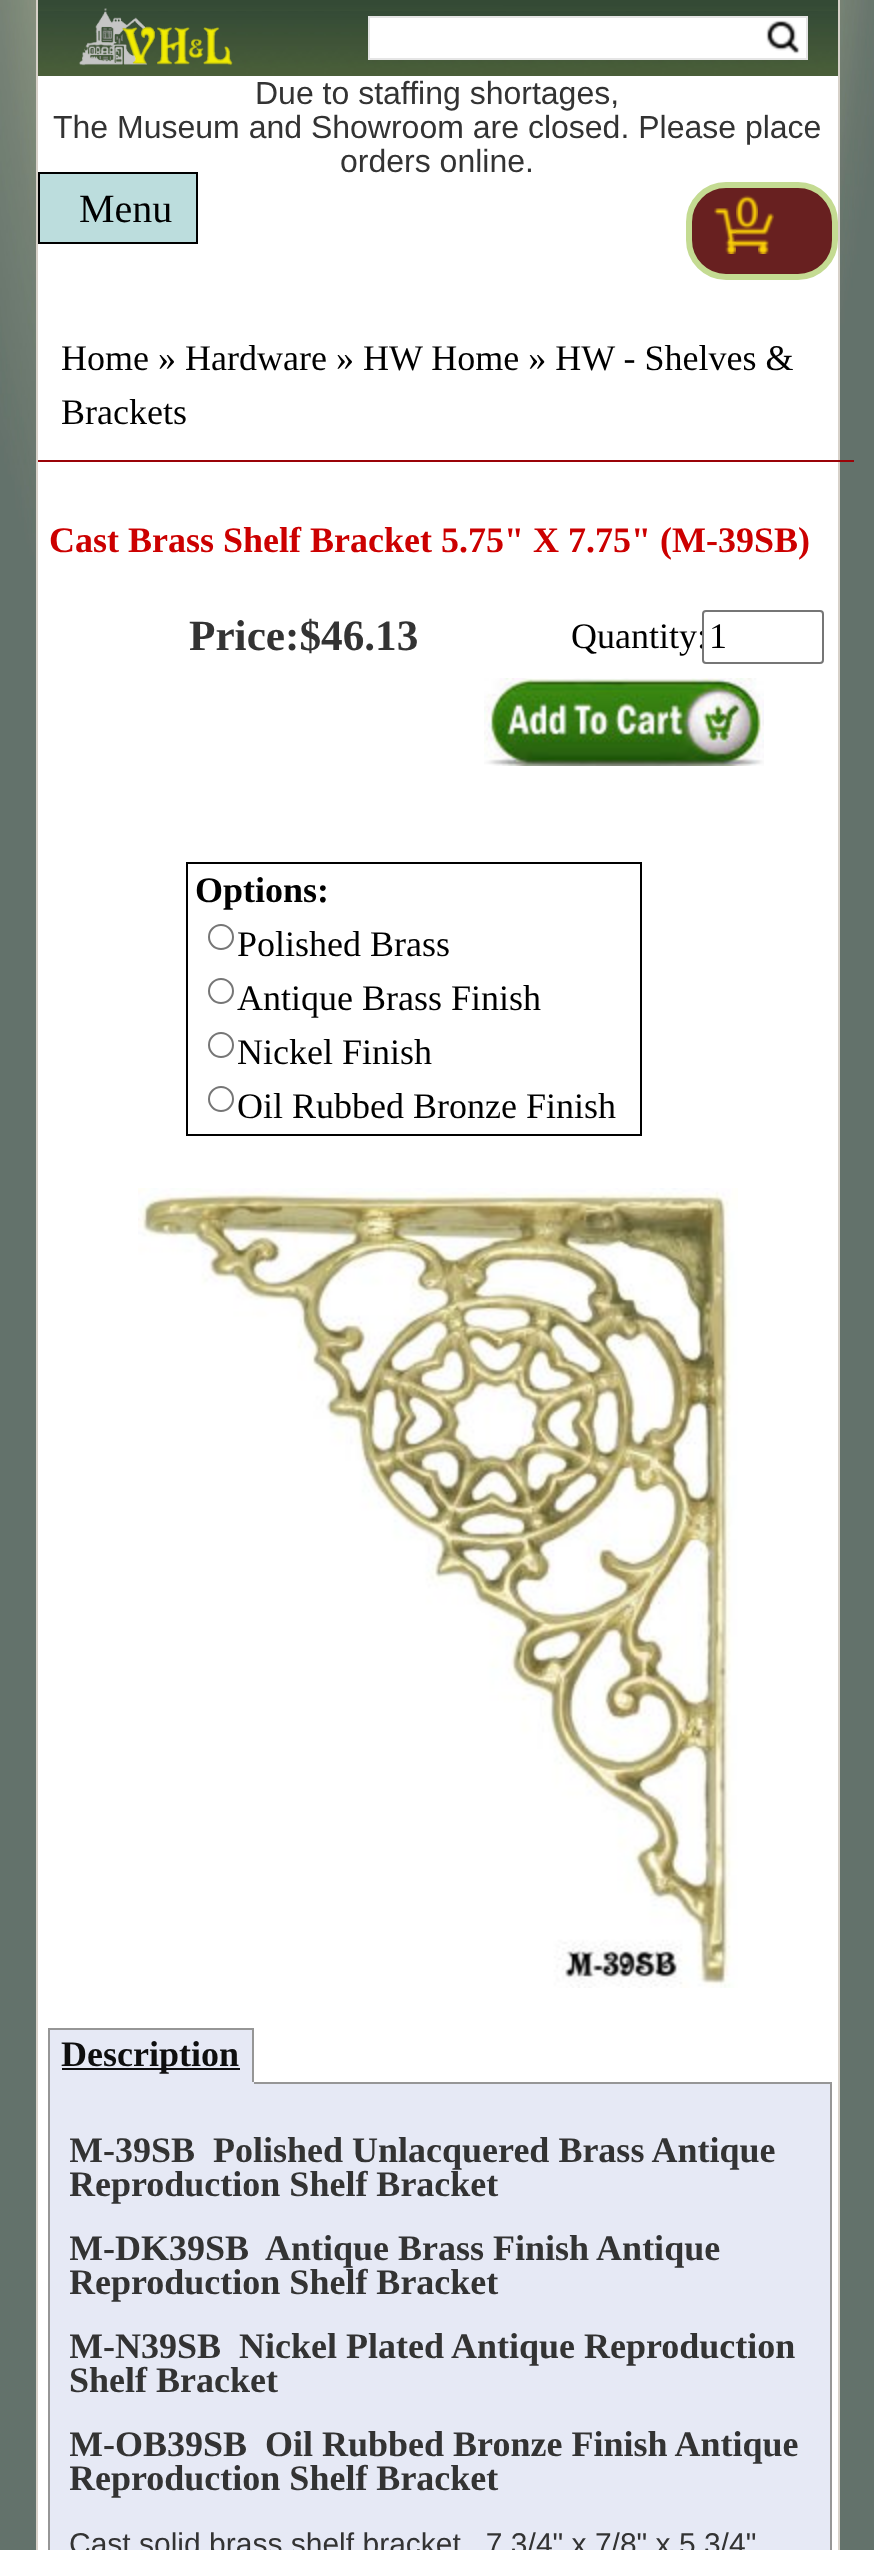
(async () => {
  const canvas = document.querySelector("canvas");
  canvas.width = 874;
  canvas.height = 2550;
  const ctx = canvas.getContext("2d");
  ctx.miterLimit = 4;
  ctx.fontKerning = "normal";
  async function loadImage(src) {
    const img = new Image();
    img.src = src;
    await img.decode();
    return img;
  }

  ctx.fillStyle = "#ffffff";
  ctx.fillRect(0, 0, 874, 2550);
  ctx.drawImage(await loadImage("img/1.png"), 0, 0, 874, 2550);
  for (const [x, y, w, h, color] of [
    [38, 76, 800, 2474, "#ffffff"],
    [838, 0, 2, 2550, "#d7d1c9"],
    [36, 0, 2, 2550, "#d7d1c9"],
  ]) {
    ctx.fillStyle = color;
    ctx.fillRect(x, y, w, h);
  }
  ctx.drawImage(await loadImage("img/2.png"), 38, 0, 800, 11);
  ctx.drawImage(await loadImage("img/3.png"), 38, 11, 800, 65);
  ctx.drawImage(await loadImage("img/4.png"), 79, 8, 154, 58);
  ctx.fillStyle = "#ffffff";
  ctx.beginPath();
  ctx.rect(369, 17, 438, 42);
  ctx.fill();
  ctx.strokeStyle = "#e5e5e5";
  ctx.lineWidth = 2;
  ctx.stroke();
  ctx.drawImage(await loadImage("img/5.png"), 766, 20, 34, 34);
  ctx.fillStyle = "#bcdddd";
  ctx.beginPath();
  ctx.rect(39, 173, 158, 70);
  ctx.fill();
  ctx.strokeStyle = "#000000";
  ctx.stroke();
  ctx.fillStyle = "#682020";
  ctx.beginPath();
  ctx.roundRect(689, 185, 146, 92, 37);
  ctx.fill();
  ctx.strokeStyle = "#c4db92";
  ctx.lineWidth = 6;
  ctx.stroke();
  ctx.drawImage(await loadImage("img/6.png"), 714, 208, 22, 46);
  ctx.drawImage(await loadImage("img/7.png"), 736, 195, 22, 52);
  ctx.drawImage(await loadImage("img/8.png"), 758, 213, 16, 41);
  ctx.fillStyle = "#9a0308";
  ctx.fillRect(38, 460, 816, 2);
  ctx.drawImage(await loadImage("img/9.png"), 484, 678, 280, 88);
  ctx.strokeStyle = "#000000";
  ctx.lineWidth = 2;
  ctx.strokeRect(187, 863, 454, 272);
  ctx.beginPath();
  ctx.arc(221, 937, 12, 0, Math.PI * 2);
  ctx.strokeStyle = "#767676";
  ctx.stroke();
  ctx.beginPath();
  ctx.arc(221, 991, 12, 0, Math.PI * 2);
  ctx.stroke();
  ctx.beginPath();
  ctx.arc(221, 1045, 12, 0, Math.PI * 2);
  ctx.stroke();
  ctx.beginPath();
  ctx.arc(221, 1099, 12, 0, Math.PI * 2);
  ctx.stroke();
  ctx.drawImage(await loadImage("img/10.png"), 138, 1188, 600, 800);
  ctx.fillStyle = "#e6e9f5";
  ctx.fillRect(50, 2030, 202, 52);
  ctx.fillStyle = "#969696";
  ctx.fillRect(48, 2028, 206, 2);
  ctx.fillStyle = "#e6e9f5";
  ctx.beginPath();
  ctx.rect(49, 2083, 782, 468);
  ctx.fill();
  ctx.strokeStyle = "#969696";
  ctx.stroke();
  for (const [x, y, w, h, color] of [
    [252, 2028, 2, 56, "#969696"],
    [48, 2082, 206, 2, "#e6e9f5"],
    [48, 2028, 2, 56, "#969696"],
    [62, 2068, 178, 2, "#0f0f0f"],
  ]) {
    ctx.fillStyle = color;
    ctx.fillRect(x, y, w, h);
  }
  ctx.font = "32px Liberation Sans";
  ctx.fillStyle = "#333333";
  for (const [text, x, y] of [
    ["Due to staffing shortages,", 255, 104],
    ["The Museum and Showroom are closed. Please place", 53, 138],
    ["orders online.", 340, 172],
  ]) {
    ctx.fillText(text, x, y);
  }
  ctx.font = "40px Liberation Serif";
  ctx.fillStyle = "#000000";
  ctx.fillText("Menu", 79, 222);
  ctx.font = "36px Liberation Serif";
  ctx.fillText("Home » Hardware » HW Home » HW - Shelves &", 61, 370);
  ctx.fillText("Brackets", 61, 424);
  ctx.font = "bold 36px Liberation Serif";
  ctx.fillStyle = "#cc0000";
  ctx.fillText("Cast Brass Shelf Bracket 5.75\" X 7.75\" (M-39SB)", 49, 552);
  ctx.font = "bold 43.25px Liberation Serif";
  ctx.fillStyle = "#333333";
  ctx.fillText("Price:$46.13", 189, 650);
  ctx.font = "36px Liberation Serif";
  ctx.fillStyle = "#000000";
  ctx.fillText("Quantity:", 571, 648);
  ctx.fillStyle = "#ffffff";
  ctx.beginPath();
  ctx.roundRect(703, 611, 120, 52, 3);
  ctx.fill();
  ctx.strokeStyle = "#767676";
  ctx.stroke();
  ctx.fillStyle = "#000000";
  ctx.fillText("1", 709, 648);
  ctx.font = "bold 36px Liberation Serif";
  ctx.fillText("Options:", 195, 902);
  ctx.font = "36px Liberation Serif";
  for (const [text, x, y] of [
    ["Polished Brass", 237, 956],
    ["Antique Brass Finish", 237, 1010],
    ["Nickel Finish", 237, 1064],
    ["Oil Rubbed Bronze Finish", 237, 1118],
  ]) {
    ctx.fillText(text, x, y);
  }
  ctx.font = "bold 36px Liberation Serif";
  ctx.fillStyle = "#0f0f0f";
  ctx.fillText("Description", 61, 2066);
  ctx.save();
  ctx.beginPath();
  ctx.rect(70, 2104, 760, 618);
  ctx.clip();
  ctx.fillStyle = "#333333";
  for (const [text, x, y] of [
    ["M-39SB  Polished Unlacquered Brass Antique", 69, 2162],
    ["Reproduction Shelf Bracket", 69, 2196],
    ["M-DK39SB  Antique Brass Finish Antique", 69, 2260],
    ["Reproduction Shelf Bracket", 69, 2294],
    ["M-N39SB  Nickel Plated Antique Reproduction", 69, 2358],
  ]) {
    ctx.fillText(text, x, y);
  }
  ctx.restore();
  ctx.fillStyle = "#333333";
  ctx.fillText("Shelf Bracket", 69, 2392);
  ctx.save();
  ctx.beginPath();
  ctx.rect(70, 2104, 760, 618);
  ctx.clip();
  ctx.fillText("M-OB39SB  Oil Rubbed Bronze Finish Antique", 69, 2456);
  ctx.fillText("Reproduction Shelf Bracket", 69, 2490);
  ctx.restore();
  ctx.font = "30px Liberation Sans";
  ctx.fillText("Cast solid brass shelf bracket.  7 3/4\" x 7/8\" x 5 3/4\"", 69, 2554);
})();
